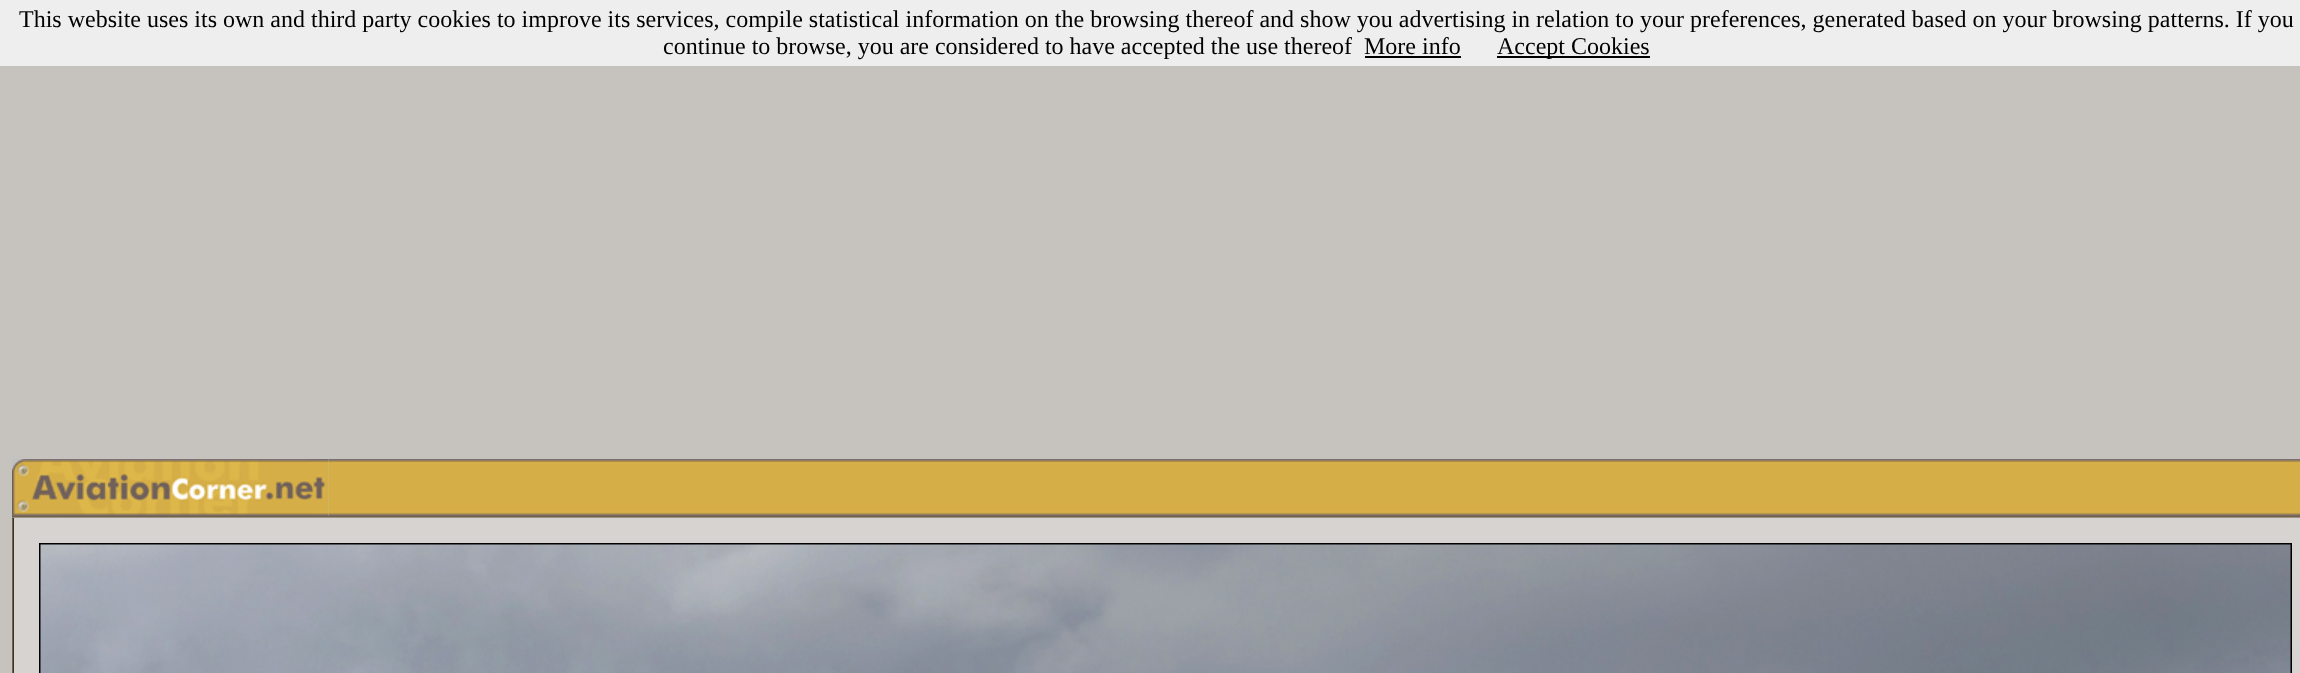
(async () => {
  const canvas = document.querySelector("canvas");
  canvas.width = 2300;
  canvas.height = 673;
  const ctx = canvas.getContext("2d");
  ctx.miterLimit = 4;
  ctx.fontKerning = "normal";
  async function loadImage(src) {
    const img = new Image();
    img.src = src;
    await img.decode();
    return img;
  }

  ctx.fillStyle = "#c6c2be";
  ctx.fillRect(0, 0, 2300, 673);
  for (const [x, y, w, h, color] of [
    [0, 0, 2300, 66, "#eeeeee"],
    [1365, 56, 96, 2, "#000000"],
    [1497, 56, 153, 2, "#000000"],
  ]) {
    ctx.fillStyle = color;
    ctx.fillRect(x, y, w, h);
  }
  ctx.drawImage(await loadImage("img/2.png"), 328, 459, 1961, 57);
  ctx.drawImage(await loadImage("img/1.png"), 12, 459, 317, 57);
  ctx.drawImage(await loadImage("img/3.png"), 2289, 459, 11, 57);
  ctx.drawImage(await loadImage("img/4.png"), 12, 516, 2288, 2);
  ctx.fillRect(13, 518, 1, 155);
  ctx.drawImage(await loadImage("img/5.png"), 12, 517, 2, 156);
  ctx.fillStyle = "#d7d3d0";
  ctx.fillRect(14, 518, 2286, 155);
  ctx.strokeStyle = "#000000";
  ctx.lineWidth = 2;
  ctx.strokeRect(40, 544, 2251, 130);
  ctx.drawImage(await loadImage("img/6.png"), 40, 544, 2251, 129);
  ctx.font = "24px Liberation Serif";
  ctx.fillStyle = "#000000";
  for (const [text, x, y] of [
    ["This website uses its own and third party cookies to improve its services, compile statistical information on the browsing thereof and show you advertising in relation to your preferences, generated based on your browsing patterns. If you", 19, 27],
    ["continue to browse, you are considered to have accepted the use thereof", 663, 54],
    ["More info", 1364, 54],
    ["Accept Cookies", 1497, 54],
  ]) {
    ctx.fillText(text, x, y);
  }
})();
